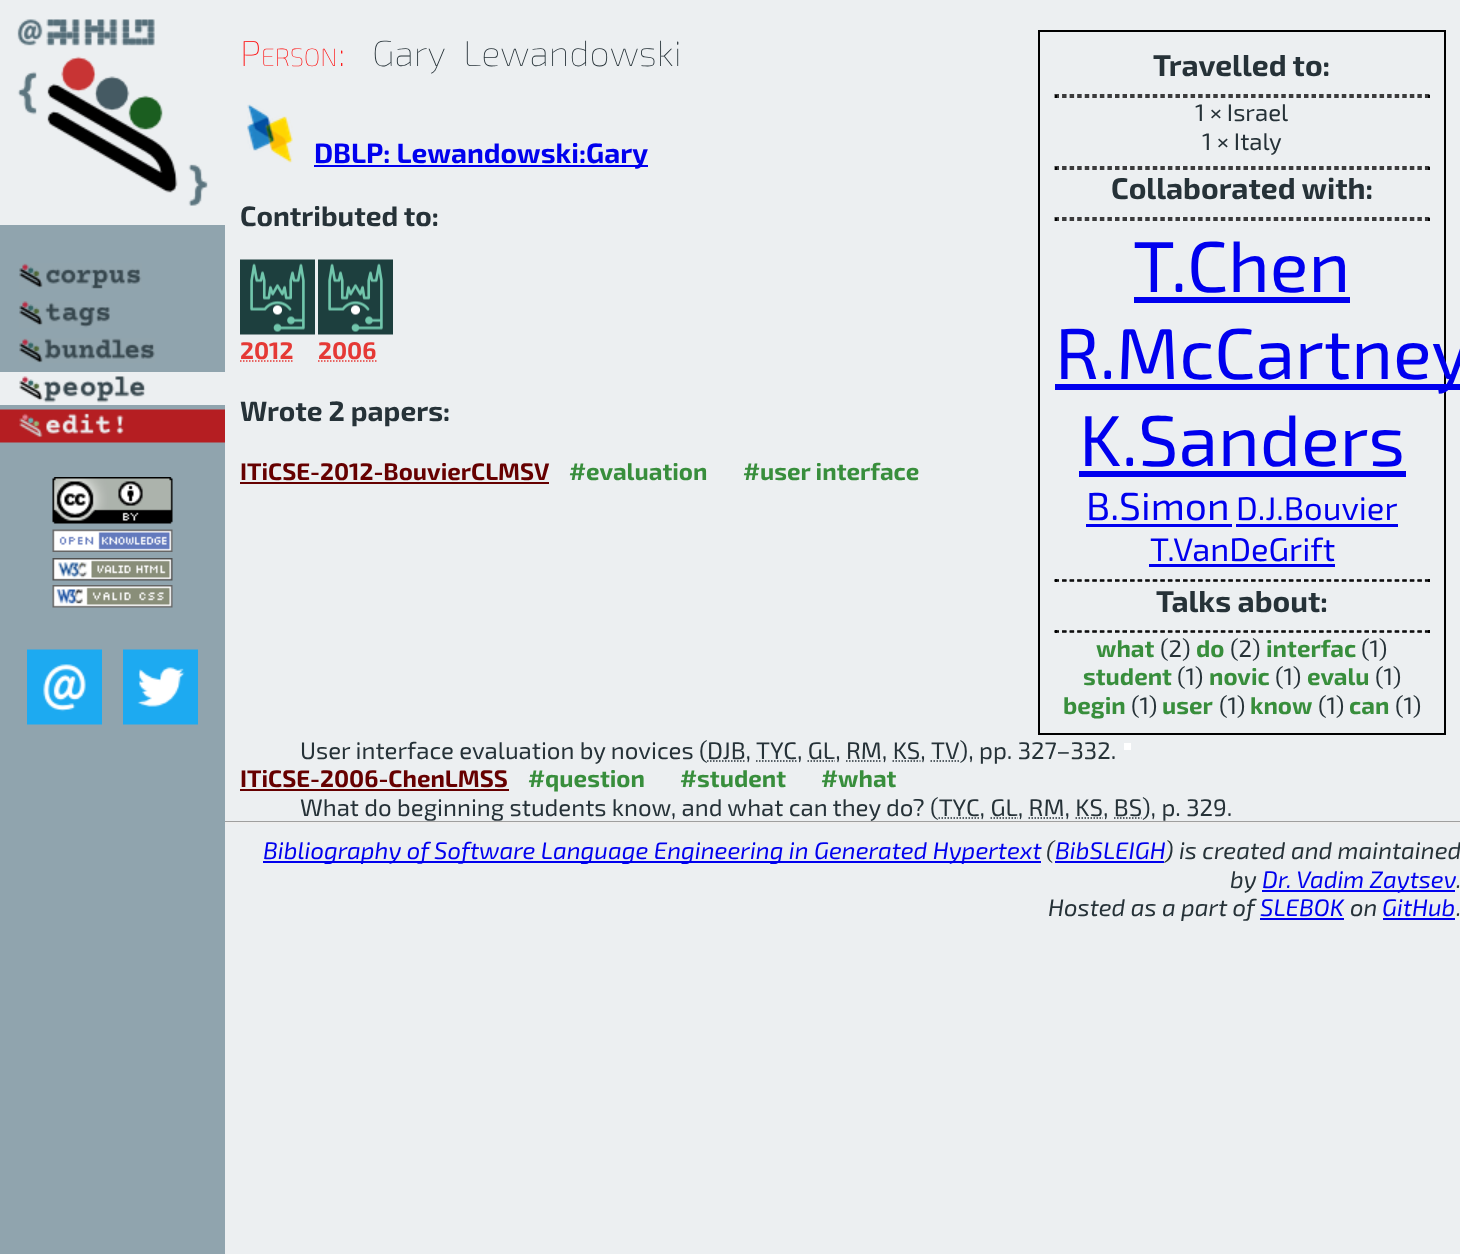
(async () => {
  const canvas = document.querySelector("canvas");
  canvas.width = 1460;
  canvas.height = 1254;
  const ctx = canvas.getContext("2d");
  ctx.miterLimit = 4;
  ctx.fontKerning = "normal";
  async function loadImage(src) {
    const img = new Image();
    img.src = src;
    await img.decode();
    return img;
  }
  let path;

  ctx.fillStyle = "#eceff1";
  ctx.fillRect(0, 0, 1460, 1254);
  ctx.fillStyle = "#90a4ae";
  ctx.fillRect(0, 225, 225, 1029);
  ctx.drawImage(await loadImage("img/1.png"), 0, 0, 225, 225);
  ctx.drawImage(await loadImage("img/2.png"), 19, 263, 123, 26);
  ctx.drawImage(await loadImage("img/3.png"), 19, 301, 91, 27);
  ctx.drawImage(await loadImage("img/4.png"), 19, 338, 136, 25);
  ctx.drawImage(await loadImage("img/5.png"), 0, 372, 225, 33);
  ctx.drawImage(await loadImage("img/6.png"), 0, 409, 225, 34);
  ctx.drawImage(await loadImage("img/7.png"), 52, 477, 121, 47);
  ctx.drawImage(await loadImage("img/8.png"), 52, 529, 121, 23);
  ctx.drawImage(await loadImage("img/9.png"), 52, 558, 121, 23);
  ctx.drawImage(await loadImage("img/10.png"), 52, 585, 121, 23);
  ctx.drawImage(await loadImage("img/11.png"), 27, 649, 75, 76);
  ctx.drawImage(await loadImage("img/12.png"), 123, 649, 75, 76);
  ctx.strokeStyle = "#000000";
  ctx.lineWidth = 2;
  ctx.strokeRect(1039, 31, 406, 703);
  path = new Path2D("M1054.5 95H1429.5");
  ctx.lineWidth = 1.5;
  ctx.setLineDash([4.5, 3.06]);
  ctx.stroke(path);
  ctx.fillStyle = "#000000";
  ctx.fillRect(1428, 95, 2, 3);
  path = new Path2D("M1054.5 97H1429.5");
  ctx.stroke(path);
  ctx.fillRect(1055, 95, 2, 3);
  path = new Path2D("M1054.5 167H1429.5");
  ctx.stroke(path);
  ctx.fillRect(1428, 167, 2, 3);
  path = new Path2D("M1054.5 169H1429.5");
  ctx.stroke(path);
  ctx.fillRect(1055, 167, 2, 3);
  path = new Path2D("M1054.5 218H1429.5");
  ctx.stroke(path);
  ctx.fillRect(1428, 218, 2, 3);
  path = new Path2D("M1054.5 220H1429.5");
  ctx.stroke(path);
  for (const [x, y, w, h, color] of [
    [1055, 218, 2, 3, "#000000"],
    [1134, 297, 216, 6, "#0000ee"],
    [1055, 384, 405, 6, "#0000ee"],
    [1079, 471, 327, 6, "#0000ee"],
    [1086, 524, 146, 3, "#0000ee"],
    [1236, 524, 162, 3, "#0000ee"],
    [1149, 564, 186, 3, "#0000ee"],
  ]) {
    ctx.fillStyle = color;
    ctx.fillRect(x, y, w, h);
  }
  path = new Path2D("M1054.5 580H1429.5");
  ctx.stroke(path);
  ctx.fillStyle = "#000000";
  ctx.fillRect(1428, 579, 2, 3);
  path = new Path2D("M1054.5 581H1429.5");
  ctx.stroke(path);
  ctx.fillRect(1055, 579, 2, 3);
  path = new Path2D("M1054.5 631H1429.5");
  ctx.stroke(path);
  ctx.fillRect(1428, 630, 2, 3);
  path = new Path2D("M1054.5 632H1429.5");
  ctx.stroke(path);
  ctx.fillRect(1055, 630, 2, 3);
  ctx.drawImage(await loadImage("img/13.png"), 247, 104, 46, 59);
  ctx.fillStyle = "#0000ee";
  ctx.fillRect(314, 165, 334, 2);
  ctx.drawImage(await loadImage("img/14.png"), 240, 259, 75, 76);
  path = new Path2D("M240 361H293.5");
  ctx.strokeStyle = "#e53935";
  ctx.setLineDash([1.5, 1.5]);
  ctx.stroke(path);
  ctx.drawImage(await loadImage("img/14.png"), 318, 259, 75, 76);
  path = new Path2D("M318 361H376.5");
  ctx.stroke(path);
  ctx.fillStyle = "#660000";
  ctx.fillRect(240, 482, 309, 2);
  path = new Path2D("M756 761H797");
  ctx.strokeStyle = "#263238";
  ctx.stroke(path);
  path = new Path2D("M930.5 761H959");
  ctx.stroke(path);
  path = new Path2D("M707 761H745.5");
  ctx.stroke(path);
  path = new Path2D("M807.5 761H835");
  ctx.stroke(path);
  path = new Path2D("M846 761H882");
  ctx.stroke(path);
  path = new Path2D("M892.5 761H920.5");
  ctx.stroke(path);
  ctx.fillStyle = "#ffffff";
  ctx.fillRect(1124, 743, 7, 7);
  ctx.fillStyle = "#660000";
  ctx.fillRect(240, 789, 269, 2);
  path = new Path2D("M938.5 818H979.5");
  ctx.stroke(path);
  path = new Path2D("M990.5 818H1018");
  ctx.stroke(path);
  path = new Path2D("M1028.5 818H1064.5");
  ctx.stroke(path);
  path = new Path2D("M1075.5 818H1103");
  ctx.stroke(path);
  path = new Path2D("M1114 818H1141.5");
  ctx.stroke(path);
  for (const [x, y, w, h, color] of [
    [225, 821, 1235, 1, "#9f9f9f"],
    [225, 822, 1235, 2, "#eeeeee"],
    [263, 861, 778, 2, "#0000ee"],
    [1262, 890, 193, 2, "#0000ee"],
    [1260, 918, 84, 2, "#0000ee"],
    [1383, 918, 72, 2, "#0000ee"],
  ]) {
    ctx.fillStyle = color;
    ctx.fillRect(x, y, w, h);
  }
  ctx.font = "100 36px 'Exo 2'";
  ctx.fillStyle = "#ff0000";
  ctx.fillText("P", 240, 66);
  ctx.font = "100 25px 'Exo 2'";
  ctx.fillText("ERSON", 261, 66);
  ctx.font = "100 36px 'Exo 2'";
  ctx.fillText(":", 338, 66);
  ctx.wordSpacing = "10px";
  ctx.fillStyle = "#263238";
  ctx.fillText("Gary Lewandowski", 372, 66);
  ctx.wordSpacing = "0px";
  ctx.font = "bold 30px 'Exo 2'";
  ctx.fillText("Travelled to:", 1153, 76);
  ctx.font = "24px 'Exo 2'";
  ctx.fillText("1 × Israel", 1195, 121);
  ctx.fillText("1 × Italy", 1202, 150);
  ctx.font = "bold 30px 'Exo 2'";
  ctx.fillText("Collaborated with:", 1111, 199);
  ctx.font = "72px 'Exo 2'";
  ctx.fillStyle = "#0000ee";
  for (const [text, x, y] of [
    ["T.Chen", 1133, 292],
    ["R.McCartney", 1055, 379],
    ["K.Sanders", 1079, 466],
  ]) {
    ctx.fillText(text, x, y);
  }
  ctx.font = "39px 'Exo 2'";
  ctx.fillText("B.Simon", 1086, 520);
  ctx.font = "32.75px 'Exo 2'";
  ctx.fillText("D.J.Bouvier", 1236, 520);
  ctx.fillText("T.VanDeGrift", 1150, 561);
  ctx.font = "bold 30px 'Exo 2'";
  ctx.fillStyle = "#263238";
  ctx.fillText("Talks about:", 1156, 612);
  ctx.font = "bold 24px 'Exo 2'";
  ctx.fillStyle = "#388e3c";
  ctx.fillText("what", 1096, 657);
  ctx.font = "24px 'Exo 2'";
  ctx.fillStyle = "#263238";
  ctx.fillText("(2)", 1160, 657);
  ctx.font = "bold 24px 'Exo 2'";
  ctx.fillStyle = "#388e3c";
  ctx.fillText("do", 1196, 657);
  ctx.font = "24px 'Exo 2'";
  ctx.fillStyle = "#263238";
  ctx.fillText("(2)", 1230, 657);
  ctx.font = "bold 24px 'Exo 2'";
  ctx.fillStyle = "#388e3c";
  ctx.fillText("interfac", 1266, 657);
  ctx.font = "24px 'Exo 2'";
  ctx.fillStyle = "#263238";
  ctx.fillText("(1)", 1361, 657);
  ctx.font = "bold 24px 'Exo 2'";
  ctx.fillStyle = "#388e3c";
  ctx.fillText("student", 1083, 685);
  ctx.font = "24px 'Exo 2'";
  ctx.fillStyle = "#263238";
  ctx.fillText("(1)", 1177, 685);
  ctx.font = "bold 24px 'Exo 2'";
  ctx.fillStyle = "#388e3c";
  ctx.fillText("novic", 1209, 685);
  ctx.font = "24px 'Exo 2'";
  ctx.fillStyle = "#263238";
  ctx.fillText("(1)", 1275, 685);
  ctx.font = "bold 24px 'Exo 2'";
  ctx.fillStyle = "#388e3c";
  ctx.fillText("evalu", 1307, 685);
  ctx.font = "24px 'Exo 2'";
  ctx.fillStyle = "#263238";
  ctx.fillText("(1)", 1375, 685);
  ctx.font = "bold 24px 'Exo 2'";
  ctx.fillStyle = "#388e3c";
  ctx.fillText("begin", 1063, 714);
  ctx.font = "24px 'Exo 2'";
  ctx.fillStyle = "#263238";
  ctx.fillText("(1)", 1131, 714);
  ctx.font = "bold 24px 'Exo 2'";
  ctx.fillStyle = "#388e3c";
  ctx.fillText("user", 1162, 714);
  ctx.font = "24px 'Exo 2'";
  ctx.fillStyle = "#263238";
  ctx.fillText("(1)", 1219, 714);
  ctx.font = "bold 24px 'Exo 2'";
  ctx.fillStyle = "#388e3c";
  ctx.fillText("know", 1250, 714);
  ctx.font = "24px 'Exo 2'";
  ctx.fillStyle = "#263238";
  ctx.fillText("(1)", 1318, 714);
  ctx.font = "bold 24px 'Exo 2'";
  ctx.fillStyle = "#388e3c";
  ctx.fillText("can", 1349, 714);
  ctx.font = "24px 'Exo 2'";
  ctx.fillStyle = "#263238";
  ctx.fillText("(1)", 1395, 714);
  ctx.font = "bold 28px 'Exo 2'";
  ctx.fillStyle = "#0000ee";
  ctx.fillText("DBLP: Lewandowski:Gary", 314, 163);
  ctx.fillStyle = "#263238";
  ctx.fillText("Contributed to:", 240, 226);
  ctx.font = "bold 24px 'Exo 2'";
  ctx.fillStyle = "#e53935";
  ctx.fillText("2012", 240, 359);
  ctx.fillText("2006", 318, 359);
  ctx.font = "bold 28px 'Exo 2'";
  ctx.fillStyle = "#263238";
  ctx.fillText("Wrote 2 papers:", 240, 421);
  ctx.font = "bold 24px 'Exo 2'";
  ctx.fillStyle = "#660000";
  ctx.fillText("ITiCSE-2012-BouvierCLMSV", 240, 480);
  ctx.fillStyle = "#388e3c";
  ctx.fillText("#evaluation", 569, 480);
  ctx.fillText("#user interface", 743, 480);
  ctx.font = "24px 'Exo 2'";
  ctx.fillStyle = "#263238";
  for (const [text, x, y] of [
    ["User interface evaluation by novices (DJB,", 300, 759],
    ["TYC, GL, RM, KS,", 756, 759],
    ["TV), pp. 327–332.", 931, 759],
  ]) {
    ctx.fillText(text, x, y);
  }
  ctx.font = "bold 24px 'Exo 2'";
  ctx.fillStyle = "#660000";
  ctx.fillText("ITiCSE-2006-ChenLMSS", 240, 787);
  ctx.fillStyle = "#388e3c";
  for (const [text, x, y] of [
    ["#question", 528, 787],
    ["#student", 680, 787],
    ["#what", 821, 787],
  ]) {
    ctx.fillText(text, x, y);
  }
  ctx.font = "24px 'Exo 2'";
  ctx.fillStyle = "#263238";
  ctx.fillText("What do beginning students know, and what can they do? (TYC, GL, RM, KS, BS", 300, 816);
  ctx.fillText("), p. 329.", 1142, 816);
  ctx.font = "italic 24px 'Exo 2'";
  ctx.fillStyle = "#0000ee";
  ctx.fillText("Bibliography of Software Language Engineering in Generated Hypertext", 263, 859);
  ctx.fillStyle = "#263238";
  ctx.fillText("(", 1046, 859);
  ctx.fillStyle = "#0000ee";
  ctx.fillRect(1055, 861, 109, 2);
  ctx.fillText("BibSLEIGH", 1055, 859);
  ctx.fillStyle = "#263238";
  ctx.fillText(") is created and maintained", 1165, 859);
  ctx.fillText("by", 1230, 888);
  ctx.fillStyle = "#0000ee";
  ctx.fillText("Dr. Vadim Zaytsev", 1262, 888);
  ctx.fillStyle = "#263238";
  ctx.fillText(".", 1456, 888);
  ctx.fillText("Hosted as a part of", 1048, 916);
  ctx.fillStyle = "#0000ee";
  ctx.fillText("SLEBOK", 1260, 916);
  ctx.fillStyle = "#263238";
  ctx.fillText("on", 1350, 916);
  ctx.fillStyle = "#0000ee";
  ctx.fillText("GitHub", 1382, 916);
  ctx.fillStyle = "#263238";
  ctx.fillText(".", 1456, 916);
})();
